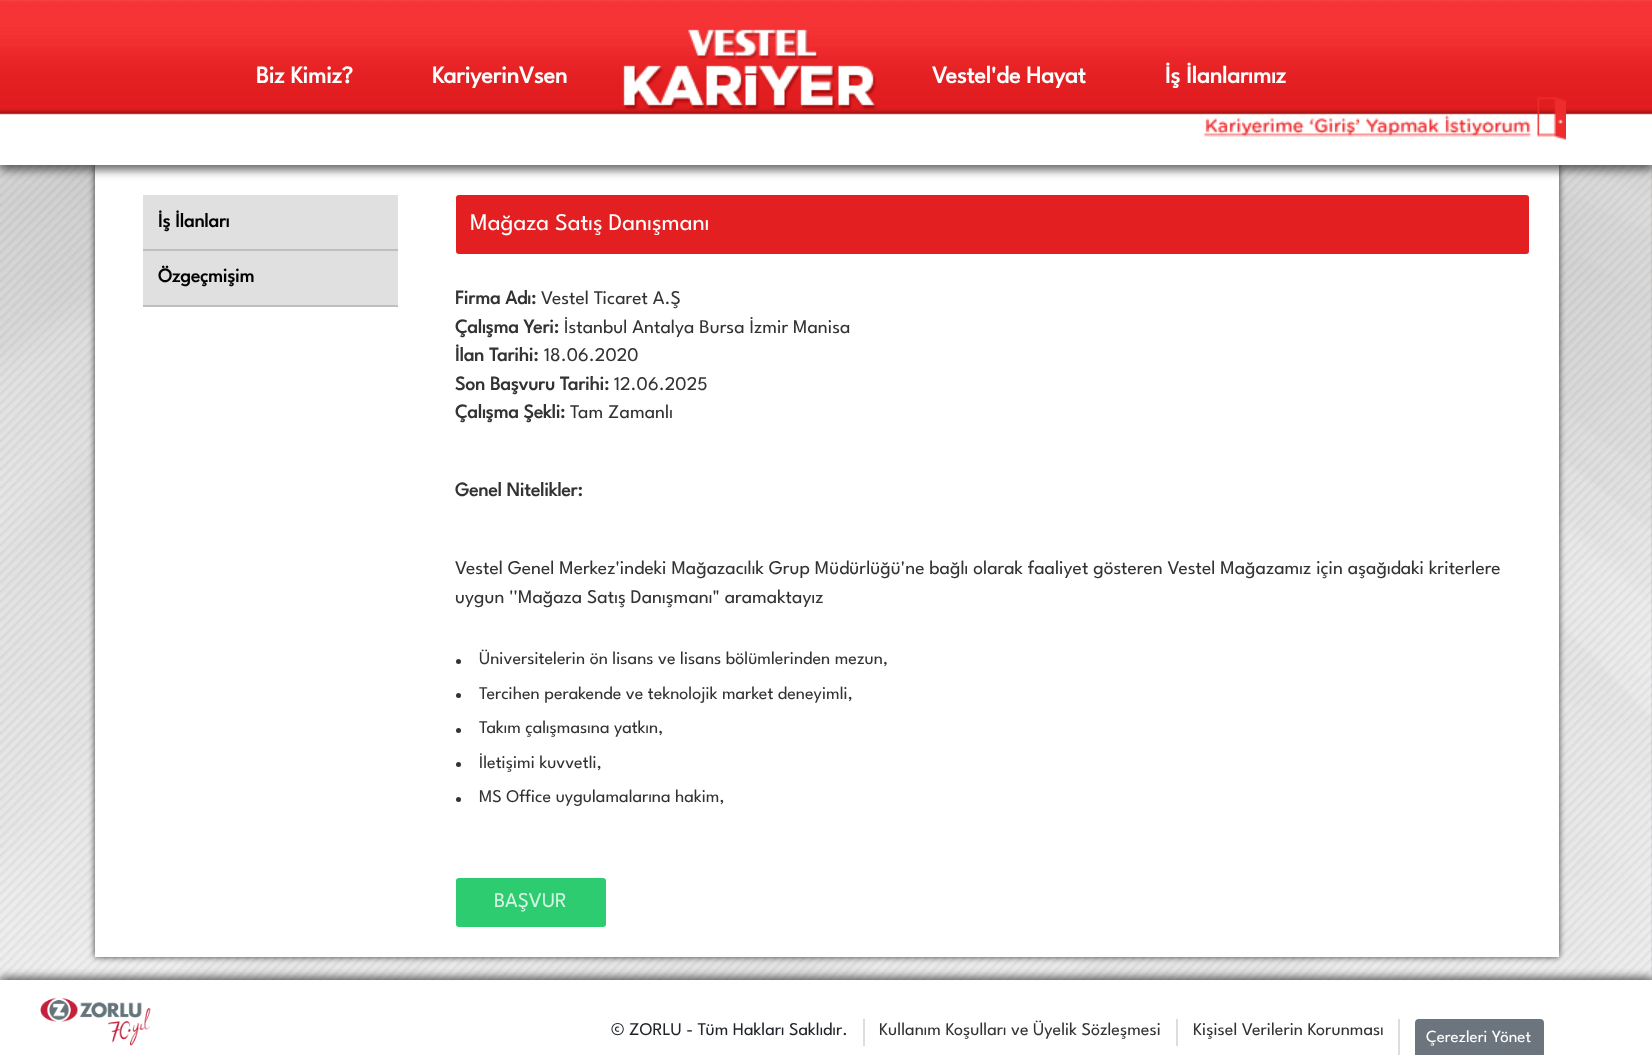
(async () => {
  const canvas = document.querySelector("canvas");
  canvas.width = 1652;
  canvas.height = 1055;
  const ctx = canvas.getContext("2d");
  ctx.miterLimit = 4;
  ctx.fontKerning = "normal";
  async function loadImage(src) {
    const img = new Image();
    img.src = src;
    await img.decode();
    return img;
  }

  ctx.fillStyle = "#ffffff";
  ctx.fillRect(0, 0, 1652, 1055);
  ctx.drawImage(await loadImage("img/1.png"), 1651, 165, 1, 815);
  ctx.drawImage(await loadImage("img/2.png"), 0, 165, 1652, 815);
  ctx.fillStyle = "rgba(0, 0, 0, 0.75)";
  ctx.filter = "blur(3px)";
  ctx.beginPath();
  ctx.rect(95, 15, 1464, 942);
  ctx.fill();
  ctx.filter = "none";
  ctx.fillStyle = "#ffffff";
  ctx.fillRect(95, 165, 1464, 792);
  ctx.fillStyle = "rgba(50, 50, 50, 0.75)";
  ctx.filter = "blur(5px)";
  ctx.beginPath();
  ctx.rect(0, 5, 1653, 165);
  ctx.fill();
  ctx.filter = "none";
  ctx.drawImage(await loadImage("img/3.png"), 0, 0, 1652, 165);
  ctx.drawImage(await loadImage("img/4.png"), 623, 29, 254, 81);
  ctx.drawImage(await loadImage("img/5.png"), 1204, 97, 362, 43);
  for (const [x, y, w, h, color] of [
    [143, 195, 255, 110, "#e0e0e0"],
    [143, 249, 255, 2, "#bfbfbf"],
    [143, 305, 255, 2, "#bfbfbf"],
  ]) {
    ctx.fillStyle = color;
    ctx.fillRect(x, y, w, h);
  }
  ctx.fillStyle = "#e31f21";
  ctx.beginPath();
  ctx.roundRect(456, 195, 1073, 59, 3);
  ctx.fill();
  ctx.fillStyle = "#333333";
  ctx.beginPath();
  ctx.arc(458.5, 661.5, 2.5, 0, Math.PI * 2);
  ctx.fill();
  ctx.beginPath();
  ctx.arc(458.5, 695.5, 2.5, 0, Math.PI * 2);
  ctx.fill();
  ctx.beginPath();
  ctx.arc(458.5, 730.5, 2.5, 0, Math.PI * 2);
  ctx.fill();
  ctx.beginPath();
  ctx.arc(458.5, 764.5, 2.5, 0, Math.PI * 2);
  ctx.fill();
  ctx.beginPath();
  ctx.arc(458.5, 799.5, 2.5, 0, Math.PI * 2);
  ctx.fill();
  ctx.fillStyle = "#2ecc71";
  ctx.beginPath();
  ctx.roundRect(456, 878, 150, 49, 3);
  ctx.fill();
  ctx.fillStyle = "rgba(50, 50, 50, 0.75)";
  ctx.filter = "blur(4px)";
  ctx.beginPath();
  ctx.rect(0, 977, 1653, 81);
  ctx.fill();
  ctx.filter = "none";
  ctx.fillStyle = "#ffffff";
  ctx.fillRect(0, 980, 1652, 75);
  ctx.drawImage(await loadImage("img/6.png"), 40, 997, 111, 49);
  for (const [x, y, w, h, color] of [
    [863, 1019, 2, 27, "#dddddd"],
    [1176, 1019, 2, 27, "#dddddd"],
    [1398, 1019, 2, 36, "#dddddd"],
  ]) {
    ctx.fillStyle = color;
    ctx.fillRect(x, y, w, h);
  }
  ctx.fillStyle = "#6c757d";
  ctx.beginPath();
  ctx.roundRect(1416, 1020, 127, 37, 3);
  ctx.fill();
  ctx.strokeStyle = "#6c757d";
  ctx.lineWidth = 2;
  ctx.stroke();
  ctx.font = "bold 24px League Spartan";
  ctx.fillStyle = "#ffffff";
  for (const [text, x, y] of [
    ["Biz Kimiz?", 256, 83],
    ["KariyerinVsen", 432, 83],
    ["Vestel'de Hayat", 932, 83],
    ["İş İlanlarımız", 1165, 83],
  ]) {
    ctx.fillText(text, x, y);
  }
  ctx.font = "bold 19.5px League Spartan";
  ctx.fillStyle = "#000000";
  ctx.fillText("İş İlanları", 158, 227);
  ctx.fillText("Özgeçmişim", 158, 282);
  ctx.font = "100 24px League Spartan";
  ctx.fillStyle = "#ffffff";
  ctx.fillText("Mağaza Satış Danışmanı", 470, 230);
  ctx.font = "bold 19.5px League Spartan";
  ctx.fillStyle = "#333333";
  ctx.fillText("Firma Adı:", 455, 304);
  ctx.font = "100 19.5px League Spartan";
  ctx.fillText("Vestel Ticaret A.Ş", 541, 304);
  ctx.font = "bold 19.5px League Spartan";
  ctx.fillText("Çalışma Yeri:", 455, 333);
  ctx.font = "100 19.5px League Spartan";
  ctx.fillText("İstanbul Antalya Bursa İzmir Manisa", 564, 333);
  ctx.font = "bold 19.5px League Spartan";
  ctx.fillText("İlan Tarihi:", 455, 361);
  ctx.font = "100 19.5px League Spartan";
  ctx.fillText("18.06.2020", 544, 361);
  ctx.font = "bold 19.5px League Spartan";
  ctx.fillText("Son Başvuru Tarihi:", 455, 390);
  ctx.font = "100 19.5px League Spartan";
  ctx.fillText("12.06.2025", 614, 390);
  ctx.font = "bold 19.5px League Spartan";
  ctx.fillText("Çalışma Şekli:", 455, 418);
  ctx.font = "100 19.5px League Spartan";
  ctx.fillText("Tam Zamanlı", 570, 418);
  ctx.font = "bold 19.5px League Spartan";
  ctx.fillText("Genel Nitelikler:", 455, 496);
  ctx.font = "100 19.5px League Spartan";
  ctx.fillText("Vestel Genel Merkez'indeki Mağazacılık Grup Müdürlüğü'ne bağlı olarak faaliyet gösteren Vestel Mağazamız için aşağıdaki kriterlere", 455, 574);
  ctx.fillText("uygun ''Mağaza Satış Danışmanı\" aramaktayız", 455, 603);
  ctx.font = "100 18px League Spartan";
  for (const [text, x, y] of [
    ["Üniversitelerin ön lisans ve lisans bölümlerinden mezun,", 479, 664],
    ["Tercihen perakende ve teknolojik market deneyimli,", 479, 699],
    ["Takım çalışmasına yatkın,", 479, 733],
    ["İletişimi kuvvetli,", 479, 768],
    ["MS Office uygulamalarına hakim,", 479, 802],
  ]) {
    ctx.fillText(text, x, y);
  }
  ctx.font = "100 21px League Spartan";
  ctx.fillStyle = "#d5f5e3";
  ctx.fillText("BAŞVUR", 494, 907);
  ctx.font = "100 18px League Spartan";
  ctx.fillStyle = "#212529";
  ctx.fillText("© ZORLU - Tüm Hakları Saklıdır.", 611, 1035);
  ctx.fillStyle = "#333333";
  ctx.fillText("Kullanım Koşulları ve Üyelik Sözleşmesi", 879, 1035);
  ctx.fillText("Kişisel Verilerin Korunması", 1193, 1035);
  ctx.font = "100 17px League Spartan";
  ctx.fillStyle = "#ffffff";
  ctx.fillText("Çerezleri Yönet", 1426, 1042);
})();
